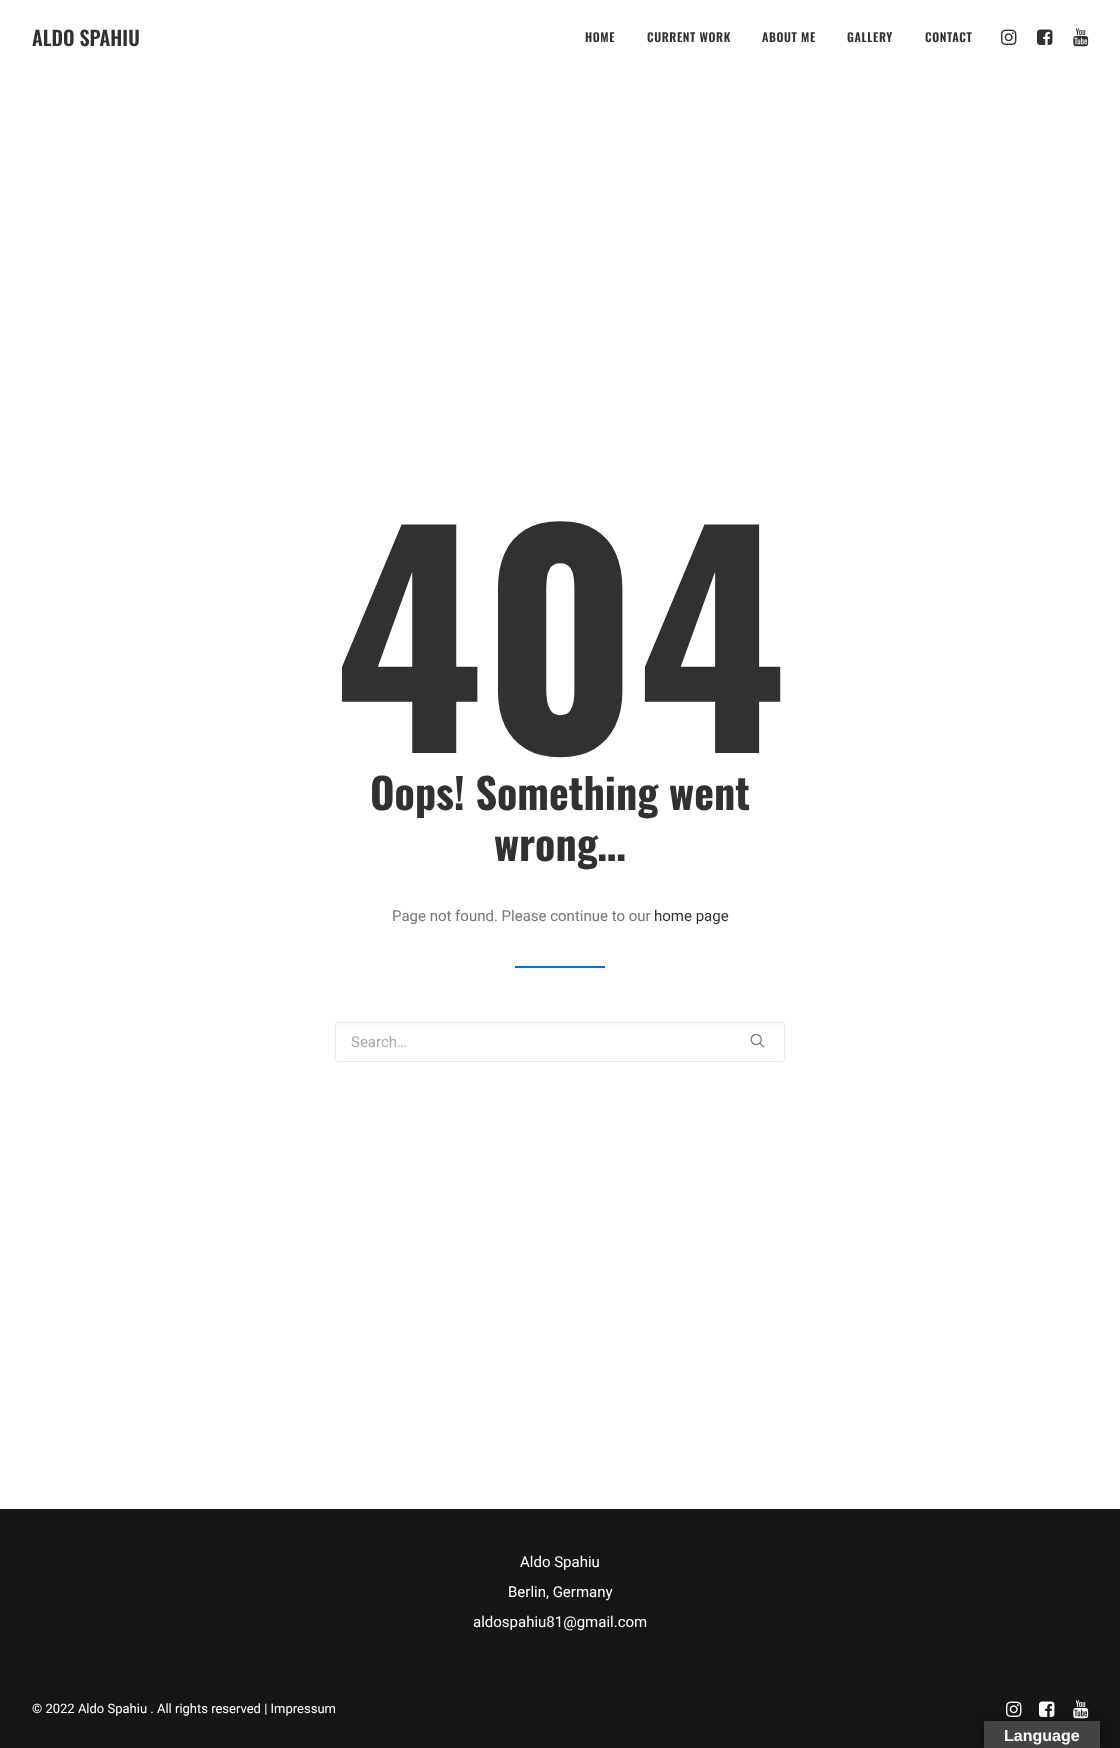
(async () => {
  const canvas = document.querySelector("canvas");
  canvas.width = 1120;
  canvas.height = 1748;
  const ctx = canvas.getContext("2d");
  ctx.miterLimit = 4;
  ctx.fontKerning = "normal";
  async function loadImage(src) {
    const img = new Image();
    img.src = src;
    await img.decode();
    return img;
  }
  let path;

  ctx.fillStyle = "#ffffff";
  ctx.fillRect(0, 0, 1120, 1748);
  ctx.drawImage(await loadImage("img/1.png"), 1001, 29, 16, 16);
  ctx.drawImage(await loadImage("img/2.png"), 1037, 29, 16, 16);
  ctx.drawImage(await loadImage("img/3.png"), 1073, 28, 16, 19);
  ctx.fillStyle = "#006cff";
  ctx.fillRect(515, 966, 90, 2);
  ctx.fillStyle = "#f9f9f9";
  path = new Path2D("M337 1025H783C784 1025 784 1025 784 1026C784 1025 784 1023 783 1023H337H336V1026C336 1025 336 1025 337 1025Z");
  ctx.fill(path);
  ctx.beginPath();
  ctx.roundRect(335.5, 1022.5, 449, 39, 1.5);
  ctx.strokeStyle = "#eaeaea";
  ctx.stroke();
  ctx.drawImage(await loadImage("img/4.png"), 750, 1033, 15, 15);
  ctx.fillStyle = "#141618";
  ctx.fillRect(0, 1509, 1120, 239);
  ctx.drawImage(await loadImage("img/5.png"), 1006, 1701, 16, 16);
  ctx.drawImage(await loadImage("img/6.png"), 1039, 1701, 16, 16);
  ctx.drawImage(await loadImage("img/7.png"), 1073, 1700, 16, 19);
  ctx.fillStyle = "rgba(0, 0, 0, 0.3)";
  ctx.filter = "blur(4.5px)";
  ctx.beginPath();
  ctx.rect(984, 1721, 116, 27);
  ctx.fill();
  ctx.filter = "none";
  ctx.fillStyle = "#444444";
  ctx.fillRect(984, 1721, 116, 27);
  ctx.font = "600 20px Oswald";
  ctx.fillStyle = "#303133";
  ctx.fillText("ALDO SPAHIU", 32, 46);
  ctx.letterSpacing = "0.6px";
  ctx.font = "600 12px Oswald";
  for (const [text, x, y] of [
    ["HOME", 585, 42],
    ["CURRENT WORK", 647, 42],
    ["ABOUT ME", 762, 42],
    ["GALLERY", 847, 42],
    ["CONTACT", 925, 42],
  ]) {
    ctx.fillText(text, x, y);
  }
  ctx.letterSpacing = "0px";
  ctx.font = "bold 282px Oswald";
  ctx.fillText("404", 335, 753);
  ctx.font = "bold 42px Oswald";
  ctx.fillText("Oops! Something went", 370, 810);
  ctx.fillText("wrong…", 494, 861);
  ctx.font = "15px Roboto";
  ctx.fillStyle = "#777777";
  ctx.fillText("Page not found. Please continue to our", 392, 921);
  ctx.fillStyle = "#303133";
  ctx.fillText("home page", 654, 921);
  ctx.fillStyle = "#a9a9a9";
  ctx.fillText("Search…", 351, 1047);
  ctx.fillStyle = "#ffffff";
  for (const [text, x, y] of [
    ["Aldo Spahiu", 520, 1567],
    ["Berlin, Germany", 508, 1597],
    ["aldospahiu81@gmail.com", 473, 1627],
  ]) {
    ctx.fillText(text, x, y);
  }
  ctx.font = "13px Roboto";
  ctx.fillText("© 2022 Aldo Spahiu . All rights reserved | Impressum", 32, 1713);
  ctx.font = "bold 16px Liberation Sans";
  ctx.fillText("Language", 1004, 1741);
})();
